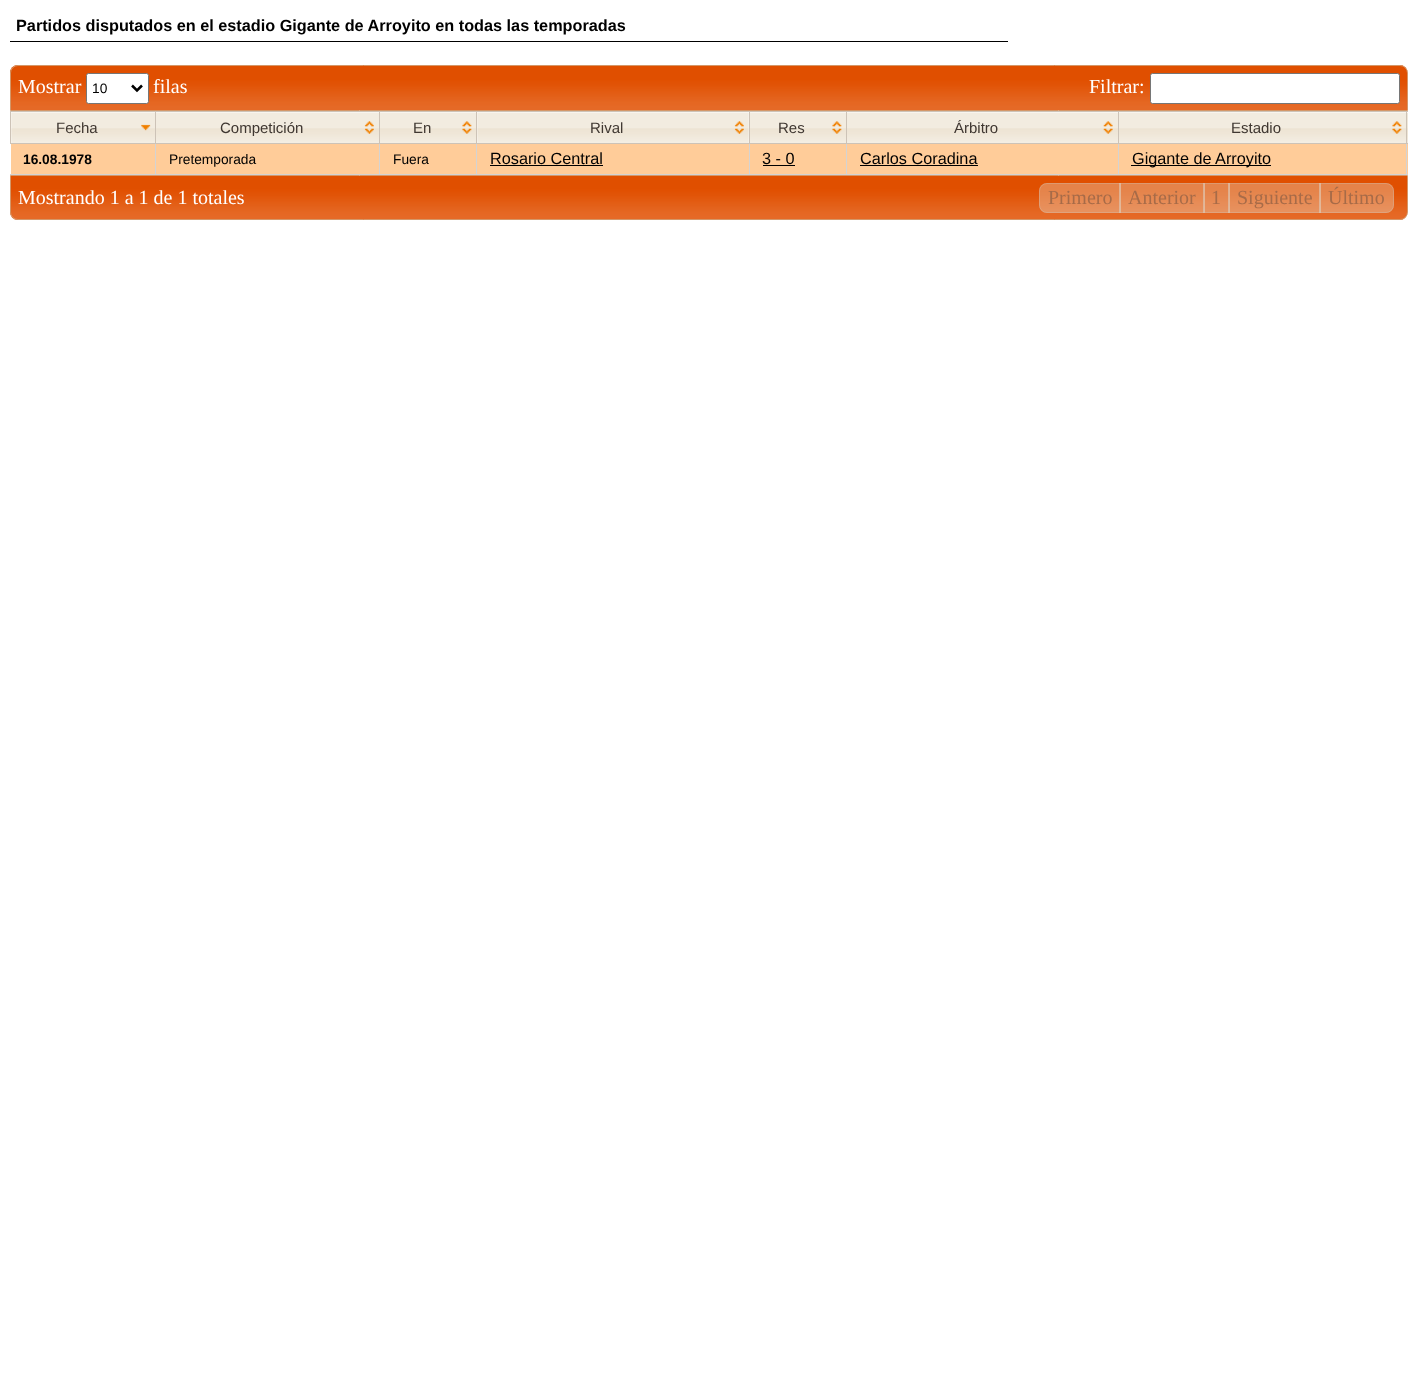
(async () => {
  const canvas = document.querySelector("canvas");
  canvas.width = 1417;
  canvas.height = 1384;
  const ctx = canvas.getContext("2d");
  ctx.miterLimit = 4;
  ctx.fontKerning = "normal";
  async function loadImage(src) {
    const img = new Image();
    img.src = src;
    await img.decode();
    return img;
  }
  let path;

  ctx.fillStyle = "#ffffff";
  ctx.fillRect(0, 0, 1417, 1384);
  ctx.fillStyle = "#000000";
  ctx.fillRect(10, 41, 998, 1);
  ctx.drawImage(await loadImage("img/1.png"), 10, 65, 1398, 45);
  ctx.beginPath();
  ctx.roundRect(10.5, 65.5, 1397, 45, [7.5, 7.5, 0, 0]);
  ctx.strokeStyle = "#d49768";
  ctx.stroke();
  ctx.fillStyle = "#ffffff";
  ctx.beginPath();
  ctx.roundRect(86.5, 73.5, 62, 30, 2);
  ctx.fill();
  ctx.strokeStyle = "#767676";
  ctx.stroke();
  path = new Path2D("M132 85.5L137 90.5L142 85.5");
  ctx.strokeStyle = "#000000";
  ctx.lineWidth = 2.5;
  ctx.stroke(path);
  ctx.beginPath();
  ctx.roundRect(1150.5, 73.5, 249, 30, 2);
  ctx.fill();
  ctx.strokeStyle = "#767676";
  ctx.lineWidth = 1;
  ctx.stroke();
  ctx.drawImage(await loadImage("img/2.png"), 11, 112, 144, 31);
  ctx.fillStyle = "#cdc3b7";
  ctx.fillRect(1118, 111, 290, 1);
  ctx.fillStyle = "#ede4d4";
  ctx.fillRect(1407, 113, 1, 30);
  ctx.drawImage(await loadImage("img/12.png"), 1119, 112, 289, 31);
  for (const [x, y, w, h, color] of [
    [11, 144, 1397, 30, "#ffcc99"],
    [1406, 143, 1, 32, "#d3d3d3"],
    [1406, 111, 1, 33, "#cdc3b7"],
    [1118, 174, 290, 1, "#d3d3d3"],
    [1118, 143, 1, 32, "#d3d3d3"],
    [1118, 143, 290, 1, "#cdc3b7"],
    [1118, 111, 1, 33, "#cdc3b7"],
    [846, 111, 273, 1, "#cdc3b7"],
    [846, 174, 273, 1, "#d3d3d3"],
    [846, 143, 1, 32, "#d3d3d3"],
    [846, 143, 273, 1, "#cdc3b7"],
    [846, 111, 1, 33, "#cdc3b7"],
    [749, 111, 99, 1, "#cdc3b7"],
    [749, 174, 99, 1, "#d3d3d3"],
    [749, 143, 1, 32, "#d3d3d3"],
    [749, 143, 99, 1, "#cdc3b7"],
    [749, 111, 1, 33, "#cdc3b7"],
    [476, 111, 274, 1, "#cdc3b7"],
  ]) {
    ctx.fillStyle = color;
    ctx.fillRect(x, y, w, h);
  }
  ctx.drawImage(await loadImage("img/6.png"), 380, 112, 98, 31);
  for (const [x, y, w, h, color] of [
    [476, 174, 274, 1, "#d3d3d3"],
    [476, 143, 1, 32, "#d3d3d3"],
    [476, 143, 274, 1, "#cdc3b7"],
    [476, 111, 1, 33, "#cdc3b7"],
    [379, 111, 99, 1, "#cdc3b7"],
    [379, 174, 99, 1, "#d3d3d3"],
    [379, 143, 1, 32, "#d3d3d3"],
    [379, 143, 99, 1, "#cdc3b7"],
    [379, 111, 1, 33, "#cdc3b7"],
    [155, 111, 225, 1, "#cdc3b7"],
    [155, 174, 225, 1, "#d3d3d3"],
    [155, 143, 1, 32, "#d3d3d3"],
    [155, 143, 225, 1, "#cdc3b7"],
    [155, 111, 1, 33, "#cdc3b7"],
    [10, 111, 146, 1, "#cdc3b7"],
    [10, 143, 146, 1, "#cdc3b7"],
    [10, 111, 1, 33, "#cdc3b7"],
  ]) {
    ctx.fillStyle = color;
    ctx.fillRect(x, y, w, h);
  }
  ctx.drawImage(await loadImage("img/3.png"), 141, 124, 10, 7);
  ctx.drawImage(await loadImage("img/4.png"), 156, 112, 223, 31);
  ctx.drawImage(await loadImage("img/5.png"), 364, 121, 10, 13);
  ctx.drawImage(await loadImage("img/7.png"), 462, 121, 10, 13);
  ctx.drawImage(await loadImage("img/8.png"), 477, 112, 272, 31);
  ctx.drawImage(await loadImage("img/5.png"), 734, 121, 10, 13);
  ctx.drawImage(await loadImage("img/9.png"), 750, 112, 96, 31);
  ctx.drawImage(await loadImage("img/7.png"), 832, 121, 10, 13);
  ctx.drawImage(await loadImage("img/10.png"), 847, 112, 271, 31);
  ctx.drawImage(await loadImage("img/11.png"), 1103, 121, 10, 13);
  ctx.drawImage(await loadImage("img/7.png"), 1392, 121, 10, 13);
  for (const [x, y, w, h, color] of [
    [10, 174, 146, 1, "#d3d3d3"],
    [490, 165, 113, 1, "#000000"],
    [763, 165, 32, 1, "#000000"],
    [860, 165, 118, 1, "#000000"],
    [1131, 165, 140, 1, "#000000"],
  ]) {
    ctx.fillStyle = color;
    ctx.fillRect(x, y, w, h);
  }
  ctx.drawImage(await loadImage("img/13.png"), 10, 176, 1398, 44);
  ctx.beginPath();
  ctx.roundRect(10.5, 175.5, 1397, 44, [0, 0, 7.5, 7.5]);
  ctx.strokeStyle = "#d49768";
  ctx.stroke();
  ctx.fillStyle = "rgba(237, 228, 212, 0.35)";
  ctx.beginPath();
  ctx.roundRect(1039, 183, 82, 30, [8, 0, 0, 8]);
  ctx.fill();
  ctx.beginPath();
  ctx.roundRect(1039.5, 183.5, 81, 29, [7.5, 0, 0, 7.5]);
  ctx.strokeStyle = "rgba(205, 195, 183, 0.35)";
  ctx.stroke();
  ctx.fillRect(1119, 183, 86, 30);
  ctx.strokeRect(1119.5, 183.5, 85, 29);
  ctx.fillRect(1203, 183, 27, 30);
  ctx.strokeRect(1203.5, 183.5, 26, 29);
  ctx.fillRect(1228, 183, 93, 30);
  ctx.strokeRect(1228.5, 183.5, 92, 29);
  ctx.beginPath();
  ctx.roundRect(1319, 183, 75, 30, [0, 8, 8, 0]);
  ctx.fill();
  ctx.beginPath();
  ctx.roundRect(1319.5, 183.5, 74, 29, [0, 7.5, 7.5, 0]);
  ctx.stroke();
  ctx.font = "bold 16.25px Liberation Sans";
  ctx.fillStyle = "#000000";
  ctx.fillText("Partidos disputados en el estadio Gigante de Arroyito en todas las temporadas", 16, 31);
  ctx.font = "20px Liberation Serif";
  ctx.fillStyle = "#ffffff";
  ctx.fillText("Mostrar", 18, 93);
  ctx.font = "13.75px Liberation Sans";
  ctx.fillStyle = "#000000";
  ctx.fillText("10", 92, 93);
  ctx.font = "20px Liberation Serif";
  ctx.fillStyle = "#ffffff";
  ctx.fillText("filas", 153, 93);
  ctx.fillText("Filtrar:", 1089, 93);
  ctx.font = "15px Liberation Sans";
  ctx.fillStyle = "#3f3731";
  for (const [text, x, y] of [
    ["Fecha", 56, 133],
    ["Competición", 220, 133],
    ["En", 413, 133],
    ["Rival", 590, 133],
    ["Res", 778, 133],
    ["Árbitro", 954, 133],
    ["Estadio", 1231, 133],
  ]) {
    ctx.fillText(text, x, y);
  }
  ctx.font = "bold 13.75px Liberation Sans";
  ctx.fillStyle = "#000000";
  ctx.fillText("16.08.1978", 23, 164);
  ctx.font = "13.75px Liberation Sans";
  ctx.fillText("Pretemporada", 169, 164);
  ctx.fillText("Fuera", 393, 164);
  ctx.font = "16.25px Liberation Sans";
  for (const [text, x, y] of [
    ["Rosario Central", 490, 164],
    ["3 - 0", 762, 164],
    ["Carlos Coradina", 860, 164],
    ["Gigante de Arroyito", 1132, 164],
  ]) {
    ctx.fillText(text, x, y);
  }
  ctx.font = "20px Liberation Serif";
  ctx.fillStyle = "#ffffff";
  ctx.fillText("Mostrando 1 a 1 de 1 totales", 18, 204);
  ctx.fillStyle = "#a76b48";
  for (const [text, x, y] of [
    ["Primero", 1048, 204],
    ["Anterior", 1128, 204],
    ["1", 1211, 204],
    ["Siguiente", 1237, 204],
    ["Último", 1328, 204],
  ]) {
    ctx.fillText(text, x, y);
  }
})();
